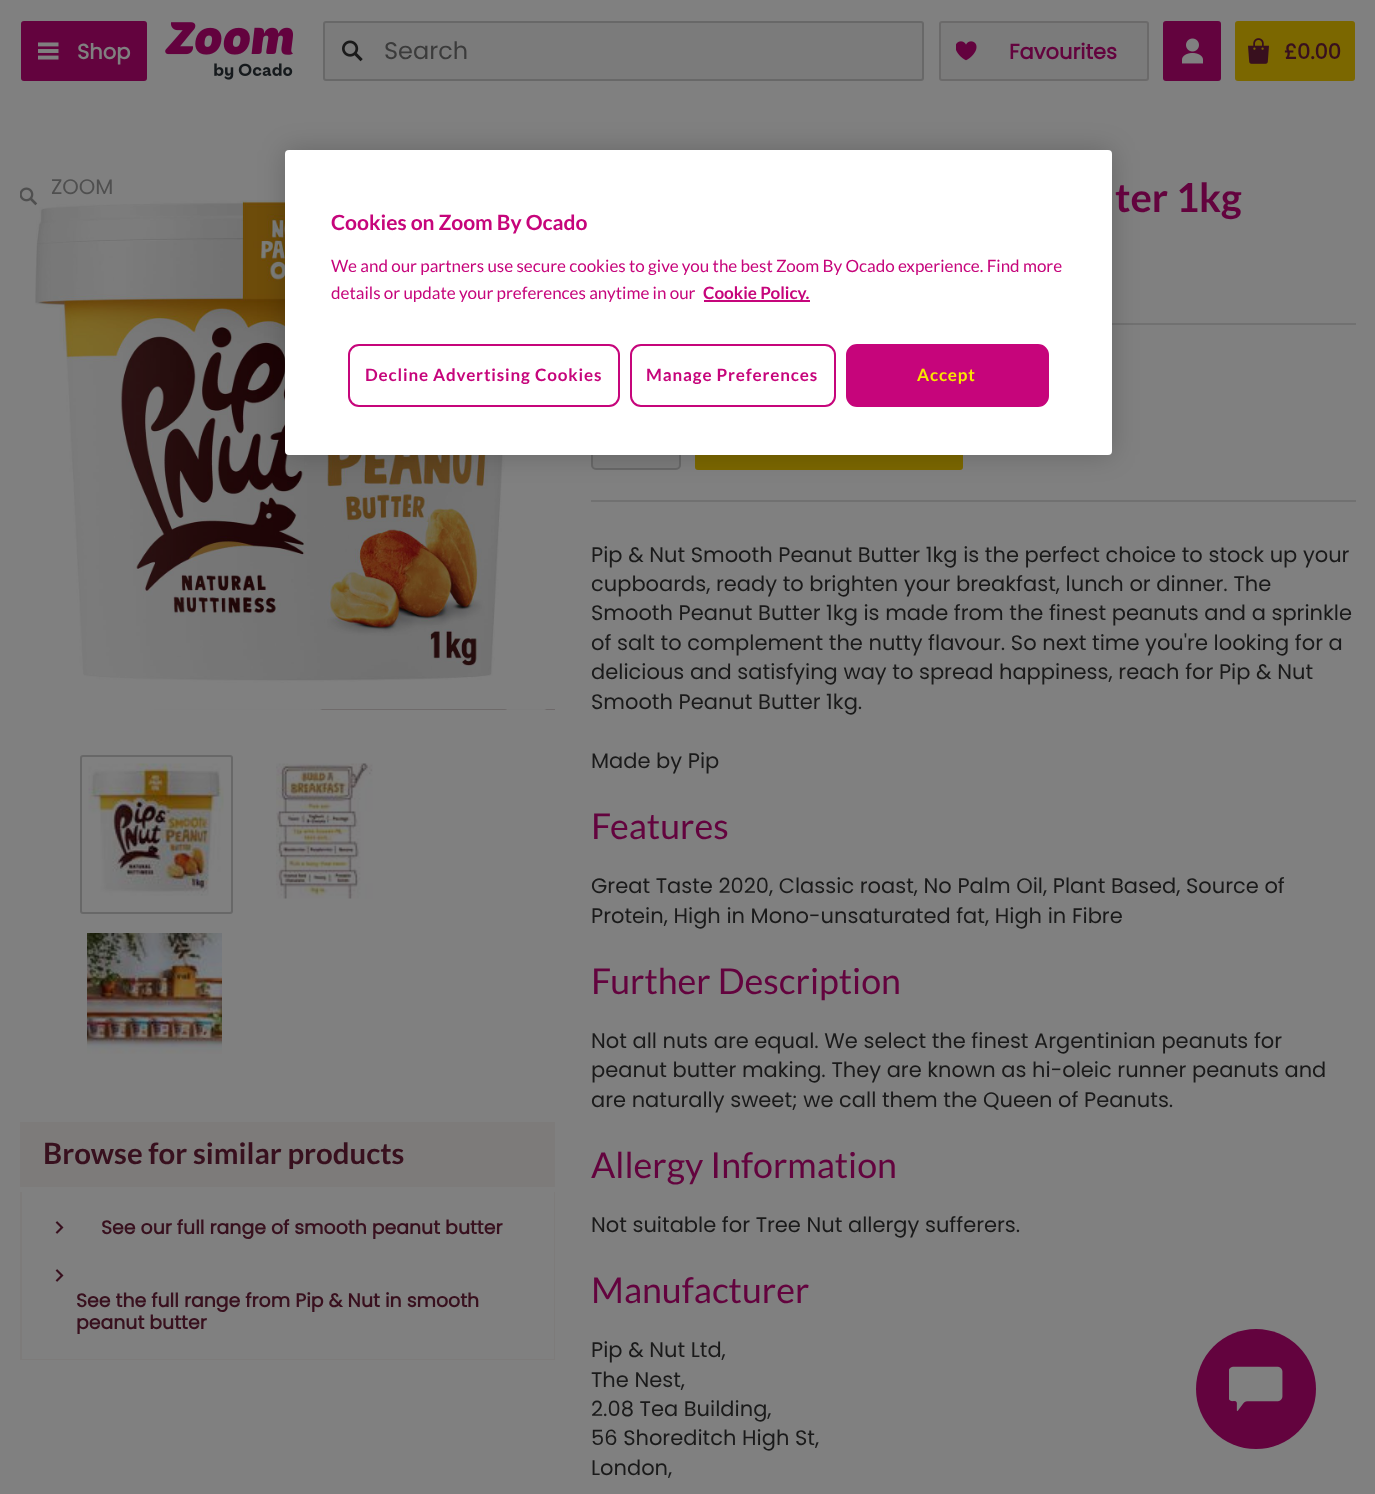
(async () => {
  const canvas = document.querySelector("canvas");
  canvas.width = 1375;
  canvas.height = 1494;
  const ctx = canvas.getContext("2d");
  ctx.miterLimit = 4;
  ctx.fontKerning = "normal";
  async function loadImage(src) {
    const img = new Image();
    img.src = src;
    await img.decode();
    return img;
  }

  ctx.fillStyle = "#808080";
  ctx.fillRect(0, 0, 1375, 1494);
  ctx.fillStyle = "#63033e";
  ctx.beginPath();
  ctx.roundRect(21, 21, 126, 60, 3);
  ctx.fill();
  ctx.drawImage(await loadImage("img/1.png"), 38, 42, 21, 18);
  ctx.drawImage(await loadImage("img/2.png"), 165, 22, 128, 58);
  ctx.fillStyle = "#7b7b7b";
  ctx.beginPath();
  ctx.roundRect(324, 22, 599, 58, 2);
  ctx.fill();
  ctx.strokeStyle = "#686868";
  ctx.lineWidth = 2;
  ctx.stroke();
  ctx.drawImage(await loadImage("img/3.png"), 342, 40, 21, 22);
  ctx.beginPath();
  ctx.roundRect(940, 22, 208, 58, 2);
  ctx.fill();
  ctx.strokeStyle = "#6b6a6a";
  ctx.stroke();
  ctx.drawImage(await loadImage("img/4.png"), 956, 41, 21, 20);
  ctx.fillStyle = "#63033e";
  ctx.beginPath();
  ctx.roundRect(1163, 21, 58, 60, 3);
  ctx.fill();
  ctx.drawImage(await loadImage("img/5.png"), 1182, 38, 21, 26);
  ctx.fillStyle = "#7b6700";
  ctx.beginPath();
  ctx.roundRect(1235, 21, 120, 60, 3);
  ctx.fill();
  ctx.drawImage(await loadImage("img/6.png"), 1248, 38, 21, 26);
  ctx.drawImage(await loadImage("img/8.png"), 63, 709, 492, 1);
  ctx.drawImage(await loadImage("img/9.png"), 35, 200, 520, 510);
  ctx.drawImage(await loadImage("img/7.png"), 20, 187, 18, 19);
  ctx.beginPath();
  ctx.roundRect(81, 756, 151, 157, 2);
  ctx.strokeStyle = "#686868";
  ctx.stroke();
  ctx.drawImage(await loadImage("img/10.png"), 88, 763, 136, 133);
  ctx.drawImage(await loadImage("img/11.png"), 276, 763, 97, 136);
  ctx.drawImage(await loadImage("img/12.png"), 87, 933, 135, 121);
  for (const [x, y, w, h, color] of [
    [20, 1122, 535, 65, "#7d7b7a"],
    [554, 1191, 1, 170, "#7d7b7a"],
    [20, 1359, 535, 1, "#7d7b7a"],
    [20, 1191, 2, 170, "#7d7b7a"],
  ]) {
    ctx.fillStyle = color;
    ctx.fillRect(x, y, w, h);
  }
  ctx.strokeStyle = "#808080";
  ctx.lineWidth = 5;
  ctx.strokeRect(17.5, 1189.5, 540, 173);
  ctx.drawImage(await loadImage("img/13.png"), 55, 1221, 9, 13);
  ctx.drawImage(await loadImage("img/13.png"), 55, 1269, 9, 13);
  ctx.fillStyle = "#717171";
  ctx.fillRect(1112, 323, 244, 2);
  ctx.fillRect(591, 500, 765, 2);
  ctx.fillStyle = "#7b7b7b";
  ctx.beginPath();
  ctx.roundRect(592, 411, 88, 58, 4);
  ctx.fill();
  ctx.strokeStyle = "#686868";
  ctx.lineWidth = 2;
  ctx.stroke();
  ctx.fillStyle = "#7b6700";
  ctx.beginPath();
  ctx.roundRect(695, 410, 268, 60, 3);
  ctx.fill();
  ctx.fillStyle = "#63033e";
  ctx.beginPath();
  ctx.arc(1256, 1389, 60, 0, Math.PI * 2);
  ctx.fill();
  ctx.drawImage(await loadImage("img/14.png"), 1229, 1366, 54, 45);
  ctx.fillStyle = "rgba(0, 0, 0, 0.2)";
  ctx.filter = "blur(13.5px)";
  ctx.beginPath();
  ctx.roundRect(285, 150, 827, 305, 4);
  ctx.fill();
  ctx.filter = "none";
  ctx.fillStyle = "#ffffff";
  ctx.beginPath();
  ctx.roundRect(285, 150, 827, 305, 4);
  ctx.fill();
  ctx.fillStyle = "#c6057b";
  ctx.fillRect(704, 300, 106, 2);
  ctx.beginPath();
  ctx.roundRect(349, 345, 270, 61, 10);
  ctx.strokeStyle = "#c6057b";
  ctx.stroke();
  ctx.beginPath();
  ctx.roundRect(631, 345, 204, 61, 10);
  ctx.stroke();
  ctx.beginPath();
  ctx.roundRect(847, 345, 201, 61, 10);
  ctx.fill();
  ctx.stroke();
  ctx.font = "bold 21px Poppins";
  ctx.fillStyle = "#808080";
  ctx.fillText("Shop", 77, 59);
  ctx.font = "24px Poppins";
  ctx.fillStyle = "#3b3b3b";
  ctx.fillText("Search", 384, 59);
  ctx.font = "bold 21px Poppins";
  ctx.fillStyle = "#63033e";
  ctx.fillText("Favourites", 1009, 59);
  ctx.fillStyle = "#38101e";
  ctx.fillText("£0.00", 1284, 59);
  ctx.font = "21px Poppins";
  ctx.fillStyle = "#4f4f4f";
  ctx.fillText("ZOOM", 51, 194);
  ctx.font = "bold 29.4px Lato";
  ctx.fillStyle = "#38101e";
  ctx.fillText("Browse for similar products", 43, 1164);
  ctx.font = "bold 18.9px Poppins";
  for (const [text, x, y] of [
    ["See our full range of smooth peanut butter", 101, 1234],
    ["See the full range from Pip & Nut in smooth", 76, 1307],
    ["peanut butter", 76, 1329],
  ]) {
    ctx.fillText(text, x, y);
  }
  ctx.font = "bold 40px Lato";
  ctx.fillStyle = "#63033e";
  ctx.fillText("ter 1kg", 1115, 212);
  ctx.font = "21px Poppins";
  ctx.fillStyle = "#1a1a1a";
  for (const [text, x, y] of [
    ["Pip & Nut Smooth Peanut Butter 1kg is the perfect choice to stock up your", 591, 562],
    ["cupboards, ready to brighten your breakfast, lunch or dinner. The", 591, 591],
    ["Smooth Peanut Butter 1kg is made from the finest peanuts and a sprinkle", 591, 620],
    ["of salt to complement the nutty flavour. So next time you're looking for a", 591, 650],
    ["delicious and satisfying way to spread happiness, reach for Pip & Nut", 591, 679],
    ["Smooth Peanut Butter 1kg.", 591, 709],
    ["Made by Pip", 591, 768],
  ]) {
    ctx.fillText(text, x, y);
  }
  ctx.font = "35.75px Lato";
  ctx.fillStyle = "#63033e";
  ctx.fillText("Features", 591, 839);
  ctx.font = "21px Poppins";
  ctx.fillStyle = "#1a1a1a";
  ctx.fillText("Great Taste 2020, Classic roast, No Palm Oil, Plant Based, Source of", 591, 893);
  ctx.fillText("Protein, High in Mono-unsaturated fat, High in Fibre", 591, 923);
  ctx.font = "35.75px Lato";
  ctx.fillStyle = "#63033e";
  ctx.fillText("Further Description", 591, 994);
  ctx.font = "21px Poppins";
  ctx.fillStyle = "#1a1a1a";
  for (const [text, x, y] of [
    ["Not all nuts are equal. We select the finest Argentinian peanuts for", 591, 1048],
    ["peanut butter making. They are known as hi-oleic runner peanuts and", 591, 1077],
    ["are naturally sweet; we call them the Queen of Peanuts.", 591, 1107],
  ]) {
    ctx.fillText(text, x, y);
  }
  ctx.font = "35.75px Lato";
  ctx.fillStyle = "#63033e";
  ctx.fillText("Allergy Information", 591, 1178);
  ctx.font = "21px Poppins";
  ctx.fillStyle = "#1a1a1a";
  ctx.fillText("Not suitable for Tree Nut allergy sufferers.", 591, 1232);
  ctx.font = "35.75px Lato";
  ctx.fillStyle = "#63033e";
  ctx.fillText("Manufacturer", 591, 1303);
  ctx.font = "21px Poppins";
  ctx.fillStyle = "#1a1a1a";
  for (const [text, x, y] of [
    ["Pip & Nut Ltd,", 591, 1357],
    ["The Nest,", 591, 1387],
    ["2.08 Tea Building,", 591, 1416],
    ["56 Shoreditch High St,", 591, 1445],
    ["London,", 591, 1475],
  ]) {
    ctx.fillText(text, x, y);
  }
  ctx.font = "bold 21px Lato";
  ctx.fillStyle = "#c6057b";
  ctx.fillText("Cookies on Zoom By Ocado", 331, 230);
  ctx.font = "17.05px Lato";
  ctx.fillText("We and our partners use secure cookies to give you the best Zoom By Ocado experience. Find more", 331, 272);
  ctx.fillText("details or update your preferences anytime in our", 331, 299);
  ctx.font = "bold 17.05px Lato";
  ctx.fillText("Cookie Policy.", 703, 299);
  ctx.letterSpacing = "0.85px";
  ctx.fillText("Decline Advertising Cookies", 365, 381);
  ctx.fillText("Manage Preferences", 646, 381);
  ctx.fillStyle = "#f8e600";
  ctx.fillText("Accept", 917, 381);
})();
